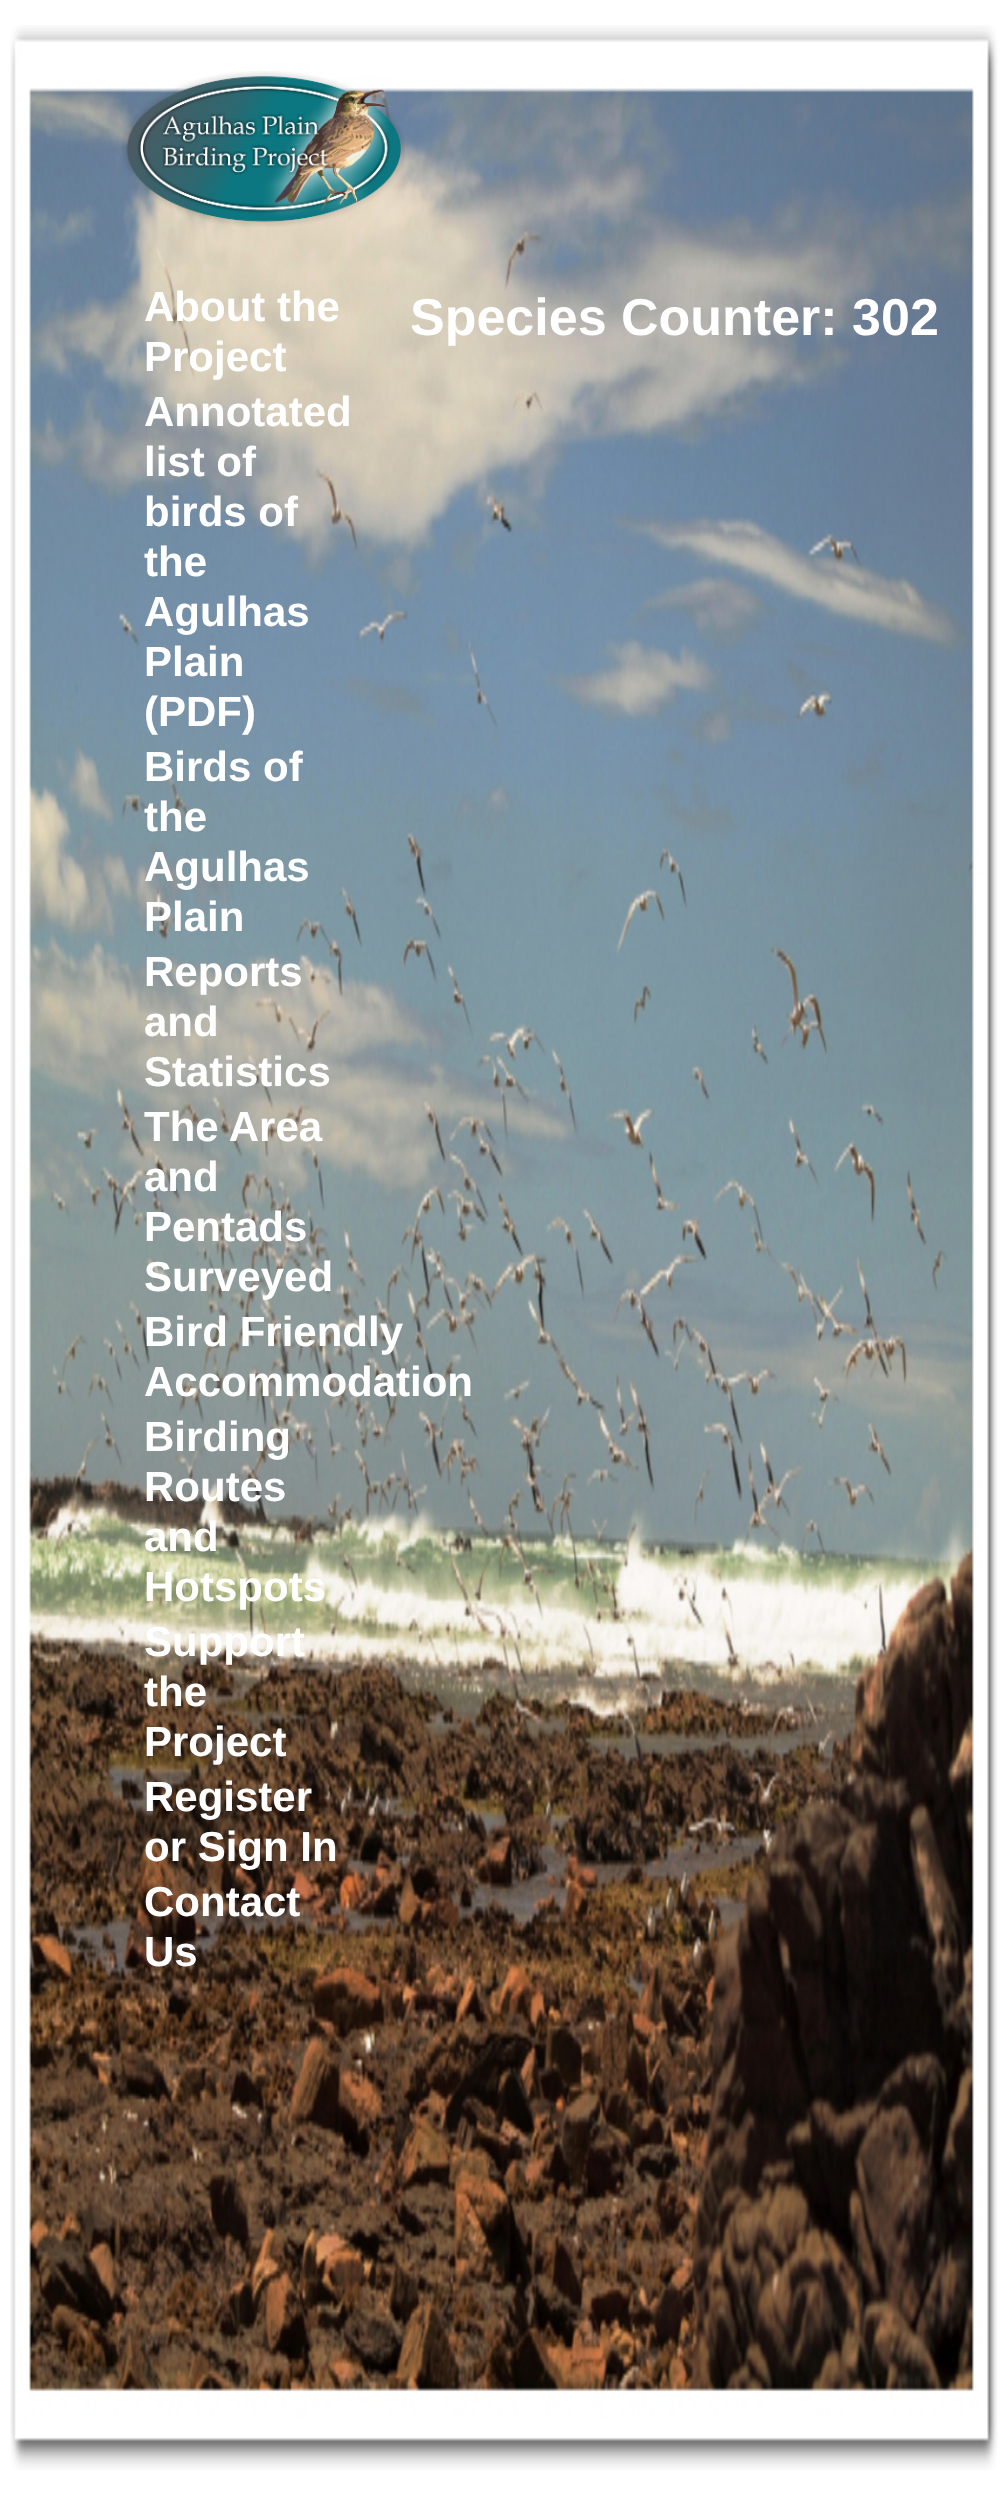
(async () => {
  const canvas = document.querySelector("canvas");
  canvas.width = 1007;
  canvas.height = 2495;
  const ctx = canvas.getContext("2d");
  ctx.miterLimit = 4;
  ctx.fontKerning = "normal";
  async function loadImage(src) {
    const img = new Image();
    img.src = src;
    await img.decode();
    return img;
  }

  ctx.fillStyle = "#ffffff";
  ctx.fillRect(0, 0, 1007, 2495);
  ctx.drawImage(await loadImage("img/1.png"), 10, 25, 988, 2445);
  ctx.drawImage(await loadImage("img/2.png"), 122, 71, 283, 156);
  ctx.font = "bold 42px Liberation Sans";
  for (const [text, x, y] of [
    ["About the", 144, 321],
    ["Project", 144, 371],
    ["Annotated", 144, 426],
    ["list of", 144, 476],
    ["birds of", 144, 526],
    ["the", 144, 576],
    ["Agulhas", 144, 626],
    ["Plain", 144, 676],
    ["(PDF)", 144, 726],
    ["Birds of", 144, 781],
    ["the", 144, 831],
    ["Agulhas", 144, 881],
    ["Plain", 144, 931],
    ["Reports", 144, 986],
    ["and", 144, 1036],
    ["Statistics", 144, 1086],
    ["The Area", 144, 1141],
    ["and", 144, 1191],
    ["Pentads", 144, 1241],
    ["Surveyed", 144, 1291],
    ["Bird Friendly", 144, 1346],
    ["Accommodation", 144, 1396],
    ["Birding", 144, 1451],
    ["Routes", 144, 1501],
    ["and", 144, 1551],
    ["Hotspots", 144, 1601],
    ["Support", 144, 1656],
    ["the", 144, 1706],
    ["Project", 144, 1756],
    ["Register", 144, 1811],
    ["or Sign In", 144, 1861],
    ["Contact", 144, 1916],
    ["Us", 144, 1966],
  ]) {
    ctx.fillText(text, x, y);
  }
  ctx.font = "bold 52px Liberation Sans";
  ctx.fillText("Species Counter: 302", 410, 335);
})();
